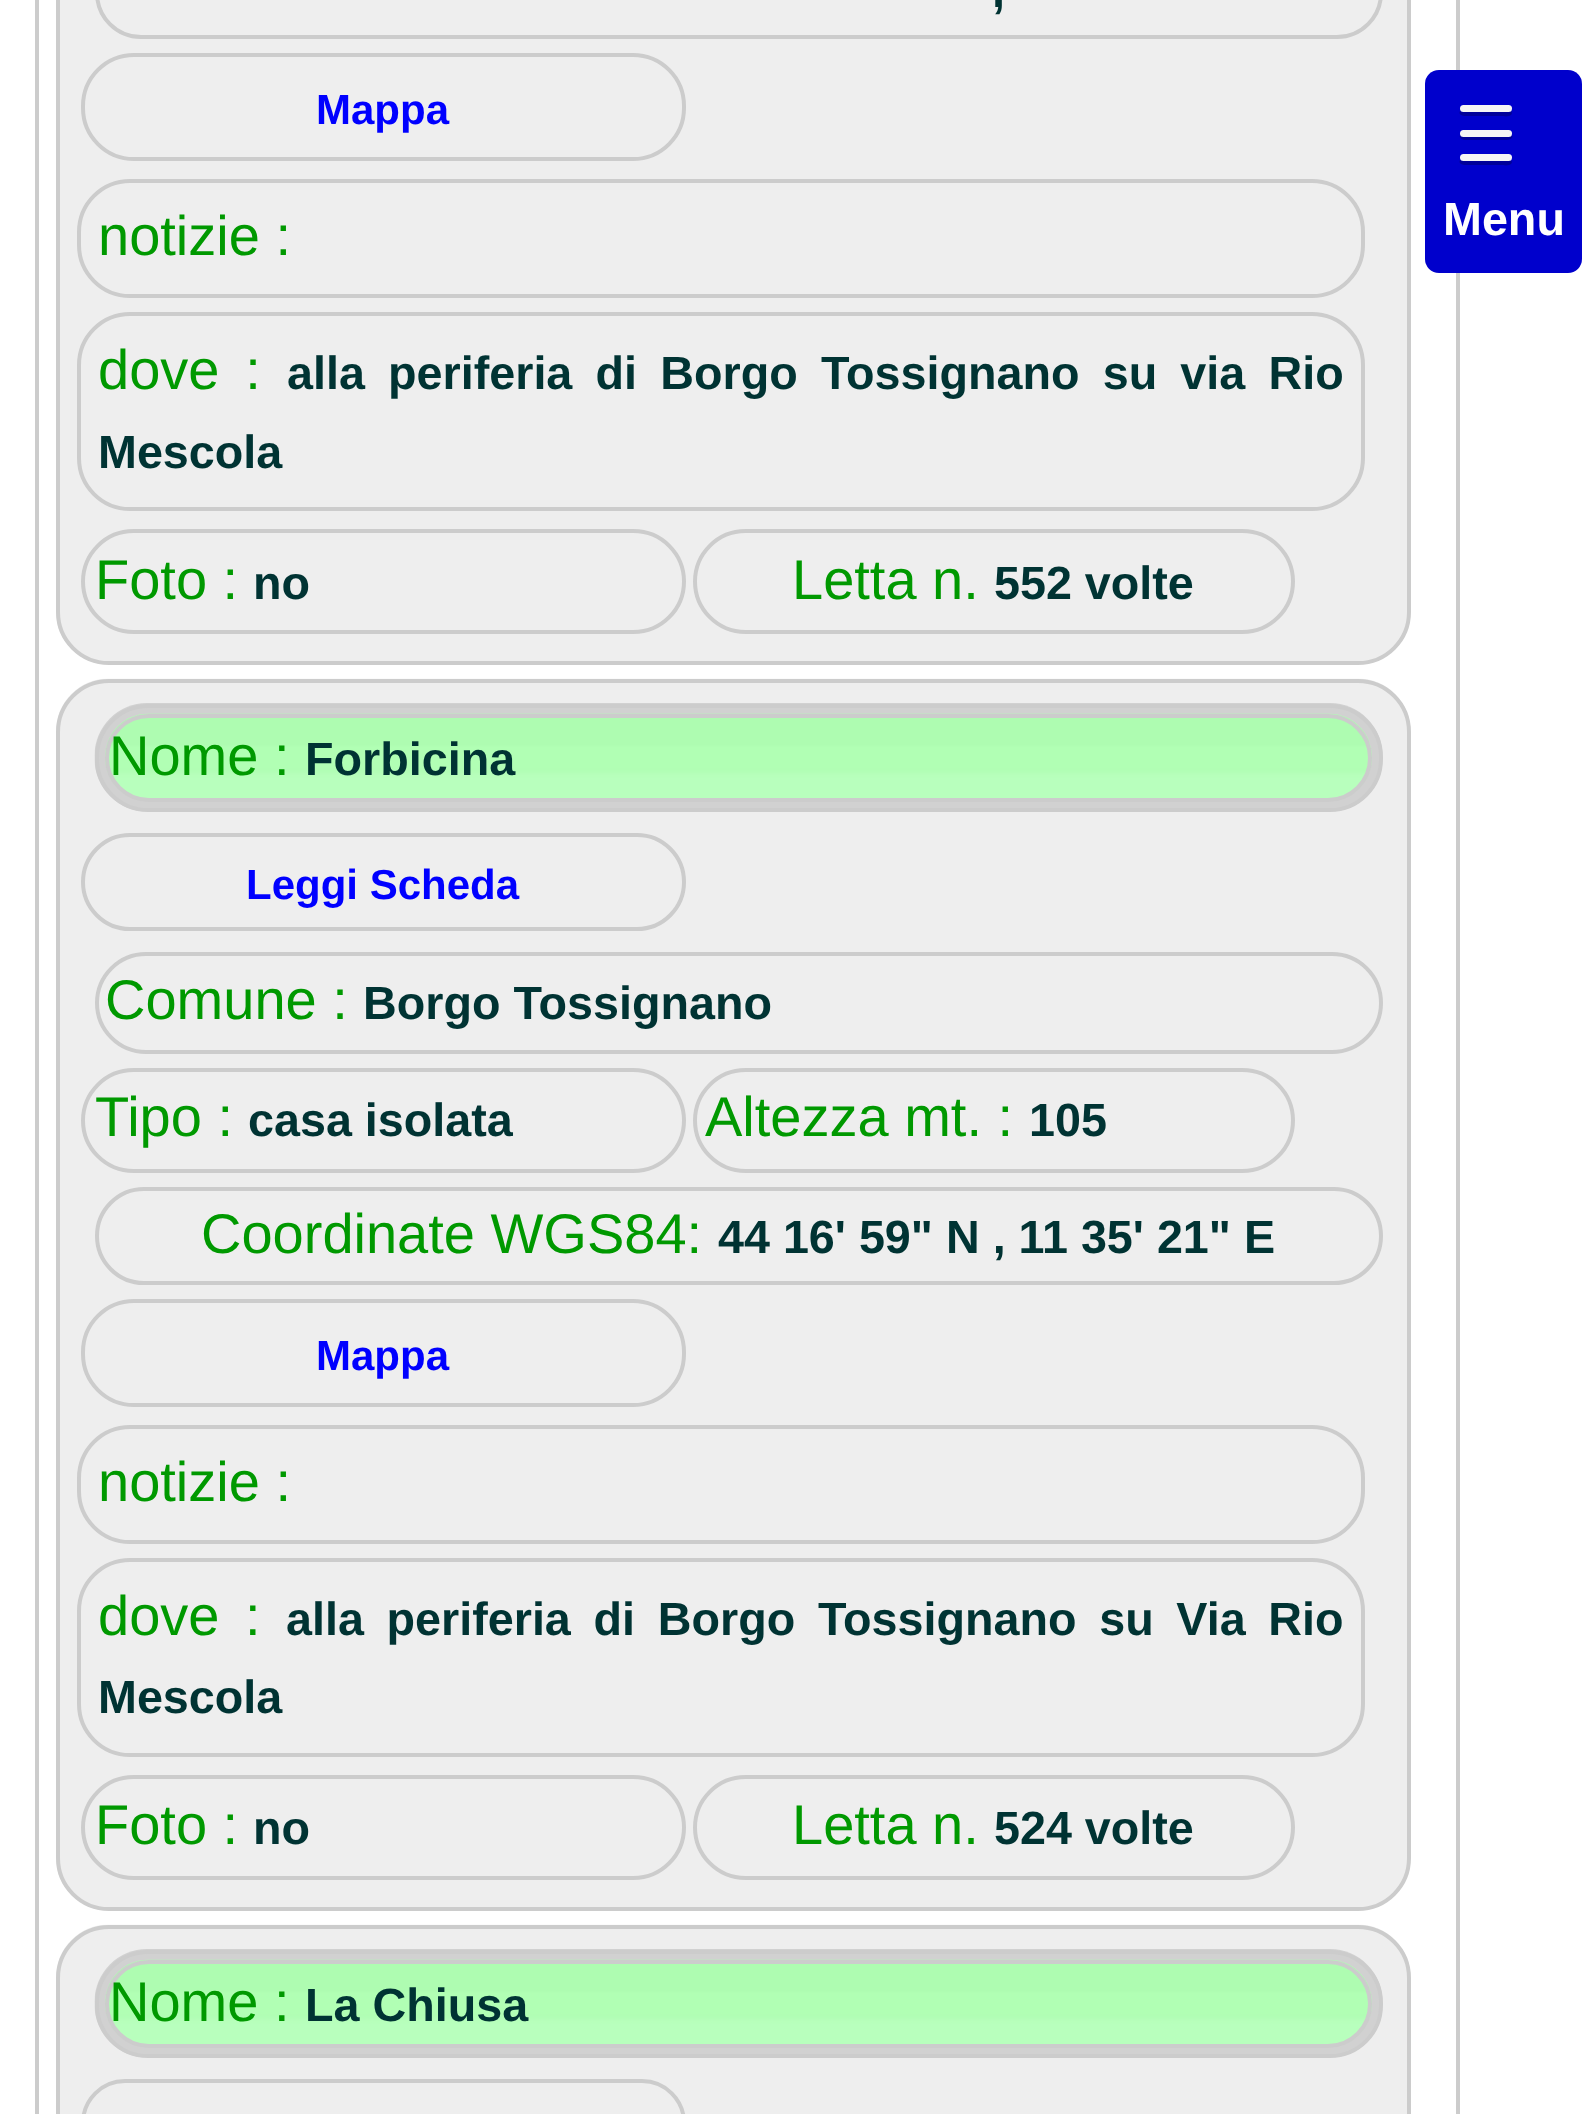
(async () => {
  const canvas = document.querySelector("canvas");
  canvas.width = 1583;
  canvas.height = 2114;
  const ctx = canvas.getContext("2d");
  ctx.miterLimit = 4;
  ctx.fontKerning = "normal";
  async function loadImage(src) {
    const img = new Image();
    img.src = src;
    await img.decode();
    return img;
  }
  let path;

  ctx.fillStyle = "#ffffff";
  ctx.fillRect(0, 0, 1583, 2114);
  ctx.strokeStyle = "#cccccc";
  ctx.lineWidth = 4;
  ctx.strokeRect(37, -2, 1421, 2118);
  ctx.drawImage(await loadImage("img/1.png"), 56, 0, 1355, 665);
  ctx.beginPath();
  ctx.roundRect(58, -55, 1351, 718, 51);
  ctx.stroke();
  ctx.beginPath();
  ctx.roundRect(97, -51, 1284, 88, 47);
  ctx.stroke();
  ctx.beginPath();
  ctx.roundRect(83, 55, 601, 104, 51);
  ctx.stroke();
  ctx.beginPath();
  ctx.roundRect(79, 181, 1284, 115, 51);
  ctx.stroke();
  ctx.beginPath();
  ctx.roundRect(79, 314, 1284, 195, 51);
  ctx.stroke();
  ctx.beginPath();
  ctx.roundRect(83, 531, 601, 101, 50.5);
  ctx.stroke();
  ctx.beginPath();
  ctx.roundRect(695, 531, 598, 101, 50.5);
  ctx.stroke();
  ctx.drawImage(await loadImage("img/2.png"), 56, 678, 1355, 1233);
  ctx.beginPath();
  ctx.roundRect(58, 681, 1351, 1228, 51);
  ctx.stroke();
  ctx.drawImage(await loadImage("img/3.png"), 94, 703, 1289, 109);
  ctx.beginPath();
  ctx.roundRect(97, 706, 1284, 104, 51);
  ctx.stroke();
  ctx.drawImage(await loadImage("img/4.png"), 105, 713, 1267, 85);
  ctx.beginPath();
  ctx.roundRect(107, 716, 1263, 84, 42);
  ctx.stroke();
  ctx.beginPath();
  ctx.roundRect(83, 835, 601, 94, 47);
  ctx.stroke();
  ctx.beginPath();
  ctx.roundRect(97, 954, 1284, 98, 49);
  ctx.stroke();
  ctx.beginPath();
  ctx.roundRect(83, 1070, 601, 101, 50.5);
  ctx.stroke();
  ctx.beginPath();
  ctx.roundRect(695, 1070, 598, 101, 50.5);
  ctx.stroke();
  ctx.beginPath();
  ctx.roundRect(97, 1189, 1284, 94, 47);
  ctx.stroke();
  ctx.beginPath();
  ctx.roundRect(83, 1301, 601, 104, 51);
  ctx.stroke();
  ctx.beginPath();
  ctx.roundRect(79, 1427, 1284, 115, 51);
  ctx.stroke();
  ctx.beginPath();
  ctx.roundRect(79, 1560, 1284, 195, 51);
  ctx.stroke();
  ctx.beginPath();
  ctx.roundRect(83, 1777, 601, 101, 50.5);
  ctx.stroke();
  ctx.beginPath();
  ctx.roundRect(695, 1777, 598, 101, 50.5);
  ctx.stroke();
  ctx.drawImage(await loadImage("img/5.png"), 56, 1924, 1355, 190);
  ctx.beginPath();
  ctx.roundRect(58, 1927, 1351, 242, 51);
  ctx.stroke();
  ctx.drawImage(await loadImage("img/3.png"), 94, 1949, 1289, 109);
  ctx.beginPath();
  ctx.roundRect(97, 1952, 1284, 104, 51);
  ctx.stroke();
  ctx.drawImage(await loadImage("img/4.png"), 105, 1959, 1267, 85);
  ctx.beginPath();
  ctx.roundRect(107, 1962, 1263, 84, 42);
  ctx.stroke();
  ctx.beginPath();
  ctx.roundRect(83, 2081, 601, 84, 47);
  ctx.stroke();
  ctx.fillStyle = "#0000cc";
  ctx.beginPath();
  ctx.roundRect(1425, 70, 157, 203, 14);
  ctx.fill();
  ctx.fillStyle = "#000099";
  path = new Path2D("M1460 111C1457 117 1469 116 1471 116H1501C1503 116 1511 118 1512 113L1511 110L1509 112H1463Z");
  ctx.fill(path);
  ctx.fillStyle = "#f5f5f5";
  ctx.beginPath();
  ctx.roundRect(1460, 105, 52, 7, 3.5);
  ctx.fill();
  ctx.fillStyle = "#000099";
  path = new Path2D("M1460 135C1458 141 1469 140 1471 140H1501C1502 140 1515 141 1512 135L1509 136H1463Z");
  ctx.fill(path);
  ctx.fillStyle = "#f5f5f5";
  ctx.beginPath();
  ctx.roundRect(1460, 130, 52, 7, 3.5);
  ctx.fill();
  ctx.fillStyle = "#000099";
  path = new Path2D("M1460 160C1457 166 1469 165 1471 165H1501C1503 165 1511 167 1512 162L1511 160L1509 161H1463Z");
  ctx.fill(path);
  ctx.fillStyle = "#f5f5f5";
  ctx.beginPath();
  ctx.roundRect(1460, 154, 52, 7, 3.5);
  ctx.fill();
  ctx.font = "bold 46.7px Liberation Sans";
  ctx.fillStyle = "#003333";
  ctx.fillText(",", 992, 7);
  ctx.font = "bold 42px Liberation Sans";
  ctx.fillStyle = "#0000ff";
  ctx.fillText("Mappa", 316, 124);
  ctx.font = "56px Liberation Sans";
  ctx.fillStyle = "#009900";
  ctx.fillText("notizie :", 98, 255);
  ctx.wordSpacing = "10.25px";
  ctx.fillText("dove :", 98, 389);
  ctx.font = "bold 46.7px Liberation Sans";
  ctx.fillStyle = "#003333";
  ctx.fillText("alla periferia di Borgo Tossignano su via Rio", 287, 389);
  ctx.wordSpacing = "0px";
  ctx.fillText("Mescola", 98, 468);
  ctx.font = "56px Liberation Sans";
  ctx.fillStyle = "#009900";
  ctx.fillText("Foto :", 95, 599);
  ctx.font = "bold 46.7px Liberation Sans";
  ctx.fillStyle = "#003333";
  ctx.fillText("no", 253, 599);
  ctx.font = "56px Liberation Sans";
  ctx.fillStyle = "#009900";
  ctx.fillText("Letta n.", 792, 599);
  ctx.font = "bold 46.7px Liberation Sans";
  ctx.fillStyle = "#003333";
  ctx.fillText("552 volte", 994, 599);
  ctx.font = "56px Liberation Sans";
  ctx.fillStyle = "#009900";
  ctx.fillText("Nome :", 109, 775);
  ctx.font = "bold 46.7px Liberation Sans";
  ctx.fillStyle = "#003333";
  ctx.fillText("Forbicina", 305, 775);
  ctx.font = "bold 42px Liberation Sans";
  ctx.fillStyle = "#0000ff";
  ctx.fillText("Leggi Scheda", 246, 899);
  ctx.font = "56px Liberation Sans";
  ctx.fillStyle = "#009900";
  ctx.fillText("Comune :", 105, 1019);
  ctx.font = "bold 46.7px Liberation Sans";
  ctx.fillStyle = "#003333";
  ctx.fillText("Borgo Tossignano", 363, 1019);
  ctx.font = "56px Liberation Sans";
  ctx.fillStyle = "#009900";
  ctx.fillText("Tipo :", 95, 1136);
  ctx.font = "bold 46.7px Liberation Sans";
  ctx.fillStyle = "#003333";
  ctx.fillText("casa isolata", 248, 1136);
  ctx.font = "56px Liberation Sans";
  ctx.fillStyle = "#009900";
  ctx.fillText("Altezza mt. :", 705, 1136);
  ctx.font = "bold 46.7px Liberation Sans";
  ctx.fillStyle = "#003333";
  ctx.fillText("105", 1029, 1136);
  ctx.font = "56px Liberation Sans";
  ctx.fillStyle = "#009900";
  ctx.fillText("Coordinate WGS84:", 201, 1253);
  ctx.font = "bold 46.7px Liberation Sans";
  ctx.fillStyle = "#003333";
  ctx.fillText("44 16' 59\" N , 11 35' 21\" E", 718, 1253);
  ctx.font = "bold 42px Liberation Sans";
  ctx.fillStyle = "#0000ff";
  ctx.fillText("Mappa", 316, 1370);
  ctx.font = "56px Liberation Sans";
  ctx.fillStyle = "#009900";
  ctx.fillText("notizie :", 98, 1501);
  ctx.wordSpacing = "10px";
  ctx.fillText("dove :", 98, 1635);
  ctx.wordSpacing = "9.75px";
  ctx.font = "bold 46.7px Liberation Sans";
  ctx.fillStyle = "#003333";
  ctx.fillText("alla periferia di Borgo Tossignano su Via Rio", 286, 1635);
  ctx.wordSpacing = "0px";
  ctx.fillText("Mescola", 98, 1713);
  ctx.font = "56px Liberation Sans";
  ctx.fillStyle = "#009900";
  ctx.fillText("Foto :", 95, 1844);
  ctx.font = "bold 46.7px Liberation Sans";
  ctx.fillStyle = "#003333";
  ctx.fillText("no", 253, 1844);
  ctx.font = "56px Liberation Sans";
  ctx.fillStyle = "#009900";
  ctx.fillText("Letta n.", 792, 1844);
  ctx.font = "bold 46.7px Liberation Sans";
  ctx.fillStyle = "#003333";
  ctx.fillText("524 volte", 994, 1844);
  ctx.font = "56px Liberation Sans";
  ctx.fillStyle = "#009900";
  ctx.fillText("Nome :", 109, 2021);
  ctx.font = "bold 46.7px Liberation Sans";
  ctx.fillStyle = "#003333";
  ctx.fillText("La Chiusa", 305, 2021);
  ctx.fillStyle = "#ffffff";
  ctx.fillText("Menu", 1443, 235);
})();
